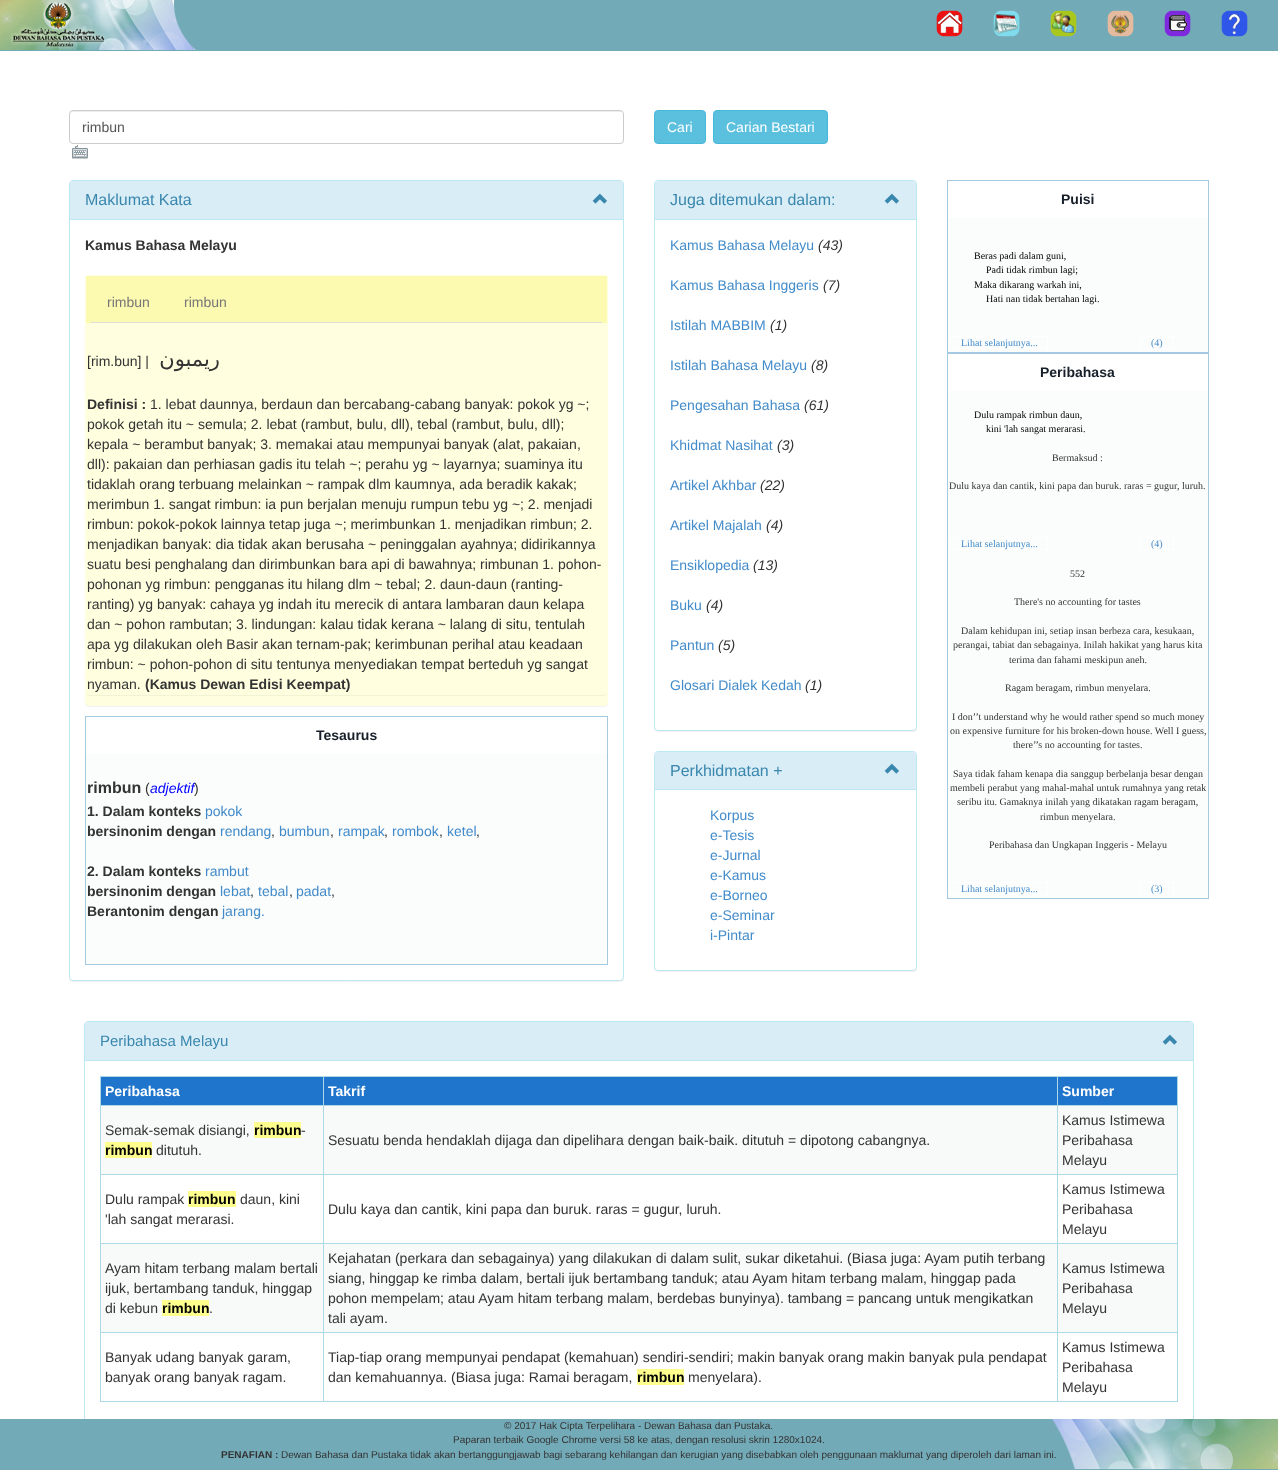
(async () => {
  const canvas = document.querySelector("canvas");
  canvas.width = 1278;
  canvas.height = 1470;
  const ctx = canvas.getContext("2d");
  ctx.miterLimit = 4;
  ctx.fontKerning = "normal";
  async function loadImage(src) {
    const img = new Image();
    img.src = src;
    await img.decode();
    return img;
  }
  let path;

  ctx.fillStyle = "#ffffff";
  ctx.fillRect(0, 0, 1278, 1470);
  ctx.fillStyle = "#73aab7";
  ctx.fillRect(0, 0, 1278, 51);
  ctx.drawImage(await loadImage("img/1.png"), 0, 0, 196, 50);
  ctx.drawImage(await loadImage("img/2.png"), 936, 10, 27, 27);
  ctx.drawImage(await loadImage("img/3.png"), 993, 10, 27, 27);
  ctx.drawImage(await loadImage("img/4.png"), 1050, 10, 27, 27);
  ctx.drawImage(await loadImage("img/5.png"), 1107, 10, 27, 27);
  ctx.drawImage(await loadImage("img/6.png"), 1164, 10, 27, 27);
  ctx.drawImage(await loadImage("img/7.png"), 1221, 10, 27, 27);
  ctx.fillStyle = "#ececec";
  path = new Path2D("M73 112H620C622 112 623 113 623 115C623 113 622 111 620 111H73L71 112L70 113V115C70 113 71 112 73 112Z");
  ctx.fill(path);
  ctx.beginPath();
  ctx.roundRect(69.5, 110.5, 554, 33, 3.5);
  ctx.strokeStyle = "#cccccc";
  ctx.stroke();
  ctx.drawImage(await loadImage("img/8.png"), 72, 145, 16, 14);
  ctx.fillStyle = "#5bc0de";
  ctx.beginPath();
  ctx.roundRect(654.5, 110.5, 51, 33, 3.5);
  ctx.fill();
  ctx.strokeStyle = "#46b8da";
  ctx.stroke();
  ctx.beginPath();
  ctx.roundRect(713.5, 110.5, 114, 33, 3.5);
  ctx.fill();
  ctx.stroke();
  ctx.fillStyle = "rgba(0, 0, 0, 0.05)";
  ctx.filter = "blur(0.5px)";
  ctx.beginPath();
  ctx.roundRect(69, 181, 555, 801, 4);
  ctx.fill();
  ctx.filter = "none";
  ctx.fillStyle = "#ffffff";
  ctx.beginPath();
  ctx.roundRect(69.5, 180.5, 554, 800, 3.5);
  ctx.fill();
  ctx.strokeStyle = "#bce8f1";
  ctx.stroke();
  ctx.fillStyle = "#d9edf7";
  ctx.beginPath();
  ctx.roundRect(70, 181, 553, 39, [3, 3, 0, 0]);
  ctx.fill();
  ctx.fillStyle = "#bce8f1";
  ctx.fillRect(70, 219, 553, 1);
  ctx.drawImage(await loadImage("img/9.png"), 592, 193, 15, 11);
  ctx.fillStyle = "rgba(0, 0, 0, 0.05)";
  ctx.filter = "blur(0.5px)";
  ctx.beginPath();
  ctx.roundRect(85, 276, 523, 431, 4);
  ctx.fill();
  ctx.filter = "none";
  ctx.fillStyle = "#ffffe0";
  ctx.beginPath();
  ctx.roundRect(85, 275, 523, 431, 4);
  ctx.fill();
  ctx.fillStyle = "#fcf9b0";
  ctx.fillRect(86, 276, 521, 47);
  ctx.fillStyle = "#dddddd";
  ctx.fillRect(91, 322, 511, 1);
  ctx.fillStyle = "rgba(0, 0, 0, 0.05)";
  ctx.filter = "blur(0.5px)";
  ctx.beginPath();
  ctx.roundRect(86, 324, 521, 372, 4);
  ctx.fill();
  ctx.filter = "none";
  ctx.fillStyle = "#ffffe0";
  ctx.beginPath();
  ctx.roundRect(86, 323, 521, 372, 4);
  ctx.fill();
  for (const [x, y, w, h, color] of [
    [85, 716, 523, 1, "#a6c9e2"],
    [607, 716, 1, 249, "#a6c9e2"],
    [85, 964, 523, 1, "#a6c9e2"],
    [85, 716, 1, 249, "#a6c9e2"],
    [86, 754, 521, 210, "#fbfcfc"],
  ]) {
    ctx.fillStyle = color;
    ctx.fillRect(x, y, w, h);
  }
  ctx.fillStyle = "rgba(0, 0, 0, 0.05)";
  ctx.filter = "blur(0.5px)";
  ctx.beginPath();
  ctx.roundRect(654, 181, 263, 551, 4);
  ctx.fill();
  ctx.filter = "none";
  ctx.fillStyle = "#ffffff";
  ctx.beginPath();
  ctx.roundRect(654.5, 180.5, 262, 550, 3.5);
  ctx.fill();
  ctx.stroke();
  ctx.fillStyle = "#d9edf7";
  ctx.beginPath();
  ctx.roundRect(655, 181, 261, 39, [3, 3, 0, 0]);
  ctx.fill();
  ctx.fillStyle = "#bce8f1";
  ctx.fillRect(655, 219, 261, 1);
  ctx.drawImage(await loadImage("img/9.png"), 884, 193, 15, 11);
  ctx.fillStyle = "rgba(0, 0, 0, 0.05)";
  ctx.filter = "blur(0.5px)";
  ctx.beginPath();
  ctx.roundRect(654, 752, 263, 220, 4);
  ctx.fill();
  ctx.filter = "none";
  ctx.fillStyle = "#ffffff";
  ctx.beginPath();
  ctx.roundRect(654.5, 751.5, 262, 219, 3.5);
  ctx.fill();
  ctx.stroke();
  ctx.fillStyle = "#d9edf7";
  ctx.beginPath();
  ctx.roundRect(655, 752, 261, 38, [3, 3, 0, 0]);
  ctx.fill();
  ctx.fillStyle = "#bce8f1";
  ctx.fillRect(655, 789, 261, 1);
  ctx.drawImage(await loadImage("img/9.png"), 884, 763, 15, 11);
  for (const [x, y, w, h, color] of [
    [947, 180, 262, 1, "#a6c9e2"],
    [947, 218, 262, 2, "#fbfcfc"],
    [1208, 180, 1, 173, "#a6c9e2"],
    [947, 352, 262, 2, "#a6c9e2"],
    [947, 180, 1, 173, "#a6c9e2"],
    [948, 220, 260, 132, "#fbfcfc"],
  ]) {
    ctx.fillStyle = color;
    ctx.fillRect(x, y, w, h);
  }
  ctx.strokeStyle = "#ffffff";
  ctx.strokeRect(950.5, 336.5, 97, 12);
  ctx.strokeRect(1140.5, 336.5, 33, 12);
  for (const [x, y, w, h, color] of [
    [947, 391, 262, 2, "#fbfcfc"],
    [1208, 353, 1, 546, "#a6c9e2"],
    [947, 898, 262, 1, "#a6c9e2"],
    [947, 353, 1, 546, "#a6c9e2"],
    [948, 393, 260, 505, "#fbfcfc"],
  ]) {
    ctx.fillStyle = color;
    ctx.fillRect(x, y, w, h);
  }
  ctx.strokeRect(950.5, 537.5, 97, 12);
  ctx.strokeRect(1140.5, 537.5, 33, 12);
  ctx.strokeRect(950.5, 882.5, 97, 12);
  ctx.strokeRect(1140.5, 882.5, 33, 12);
  ctx.beginPath();
  ctx.roundRect(84.5, 1021.5, 1109, 436, 3.5);
  ctx.strokeStyle = "#bce8f1";
  ctx.stroke();
  ctx.fillStyle = "#d9edf7";
  ctx.beginPath();
  ctx.roundRect(85, 1022, 1108, 39, [3, 3, 0, 0]);
  ctx.fill();
  ctx.fillStyle = "#bce8f1";
  ctx.fillRect(85, 1060, 1108, 1);
  ctx.drawImage(await loadImage("img/9.png"), 1162, 1034, 15, 11);
  for (const [x, y, w, h, color] of [
    [100, 1076, 1078, 1, "#add8e6"],
    [1177, 1076, 1, 326, "#add8e6"],
    [100, 1401, 1078, 1, "#add8e6"],
    [100, 1076, 1, 326, "#add8e6"],
    [101, 1077, 1076, 28, "#1f75cc"],
    [1057, 1105, 121, 1, "#add8e6"],
    [101, 1106, 1076, 68, "#f8f9f9"],
    [1057, 1174, 121, 1, "#add8e6"],
    [1057, 1243, 121, 1, "#add8e6"],
    [101, 1244, 1076, 88, "#f8f9f9"],
    [1057, 1332, 121, 1, "#add8e6"],
    [1057, 1332, 1, 70, "#add8e6"],
    [323, 1332, 735, 1, "#add8e6"],
    [1057, 1243, 1, 90, "#add8e6"],
    [323, 1243, 735, 1, "#add8e6"],
    [1057, 1174, 1, 70, "#add8e6"],
    [323, 1174, 735, 1, "#add8e6"],
    [1057, 1105, 1, 70, "#add8e6"],
    [323, 1105, 735, 1, "#add8e6"],
    [323, 1332, 1, 70, "#add8e6"],
    [100, 1332, 224, 1, "#add8e6"],
    [323, 1243, 1, 90, "#add8e6"],
    [100, 1243, 224, 1, "#add8e6"],
    [323, 1174, 1, 70, "#add8e6"],
    [100, 1174, 224, 1, "#add8e6"],
    [323, 1105, 1, 70, "#add8e6"],
    [100, 1105, 224, 1, "#add8e6"],
    [323, 1076, 1, 30, "#add8e6"],
    [1057, 1076, 1, 30, "#add8e6"],
    [254, 1122, 47, 16, "#feff8d"],
    [105, 1142, 47, 16, "#feff8d"],
    [188, 1191, 48, 16, "#feff8d"],
    [162, 1300, 47, 16, "#feff8d"],
    [637, 1369, 47, 16, "#feff8d"],
    [0, 1419, 1278, 51, "#73aab7"],
  ]) {
    ctx.fillStyle = color;
    ctx.fillRect(x, y, w, h);
  }
  ctx.drawImage(await loadImage("img/10.png"), 1052, 1419, 226, 50);
  ctx.font = "14px Liberation Sans";
  ctx.fillStyle = "#555555";
  ctx.fillText("rimbun", 82, 132);
  ctx.fillStyle = "#ffffff";
  ctx.fillText("Cari", 667, 132);
  ctx.fillText("Carian Bestari", 726, 132);
  ctx.font = "16px Liberation Sans";
  ctx.fillStyle = "#3a87ad";
  ctx.fillText("Maklumat Kata", 85, 205);
  ctx.font = "bold 14px Liberation Sans";
  ctx.fillStyle = "#333333";
  ctx.fillText("Kamus Bahasa Melayu", 85, 250);
  ctx.font = "14px Liberation Sans";
  ctx.fillStyle = "#777777";
  ctx.fillText("rimbun", 107, 307);
  ctx.fillText("rimbun", 184, 307);
  ctx.fillStyle = "#333333";
  ctx.fillText("[rim.bun] |", 87, 366);
  ctx.direction = "rtl";
  ctx.font = "21px DejaVu Sans";
  ctx.fillText("ريمبون", 220, 366);
  ctx.direction = "ltr";
  ctx.font = "bold 14px Liberation Sans";
  ctx.fillText("Definisi :", 87, 409);
  ctx.font = "14px Liberation Sans";
  for (const [text, x, y] of [
    ["1. lebat daunnya, berdaun dan bercabang-cabang banyak: pokok yg ~;", 150, 409],
    ["pokok getah itu ~ semula; 2. lebat (rambut, bulu, dll), tebal (rambut, bulu, dll);", 87, 429],
    ["kepala ~ berambut banyak; 3. memakai atau mempunyai banyak (alat, pakaian,", 87, 449],
    ["dll): pakaian dan perhiasan gadis itu telah ~; perahu yg ~ layarnya; suaminya itu", 87, 469],
    ["tidaklah orang terbuang melainkan ~ rampak dlm kaumnya, ada beradik kakak;", 87, 489],
    ["merimbun 1. sangat rimbun: ia pun berjalan menuju rumpun tebu yg ~; 2. menjadi", 87, 509],
    ["rimbun: pokok-pokok lainnya tetap juga ~; merimbunkan 1. menjadikan rimbun; 2.", 87, 529],
    ["menjadikan banyak: dia tidak akan berusaha ~ peninggalan ayahnya; didirikannya", 87, 549],
    ["suatu besi penghalang dan dirimbunkan bara api di bawahnya; rimbunan 1. pohon-", 87, 569],
    ["pohonan yg rimbun: pengganas itu hilang dlm ~ tebal; 2. daun-daun (ranting-", 87, 589],
    ["ranting) yg banyak: cahaya yg indah itu merecik di antara lambaran daun kelapa", 87, 609],
    ["dan ~ pohon rambutan; 3. lindungan: kalau tidak kerana ~ lalang di situ, tentulah", 87, 629],
    ["apa yg dilakukan oleh Basir akan ternam-pak; kerimbunan perihal atau keadaan", 87, 649],
    ["rimbun: ~ pohon-pohon di situ tentunya menyediakan tempat berteduh yg sangat", 87, 669],
    ["nyaman.", 87, 689],
  ]) {
    ctx.fillText(text, x, y);
  }
  ctx.font = "bold 14px Liberation Sans";
  ctx.fillText("(Kamus Dewan Edisi Keempat)", 145, 689);
  ctx.fillStyle = "#17202a";
  ctx.fillText("Tesaurus", 316, 740);
  ctx.font = "bold 16px Liberation Sans";
  ctx.fillStyle = "#333333";
  ctx.fillText("rimbun", 87, 793);
  ctx.font = "14px Liberation Sans";
  ctx.fillText("(", 145, 793);
  ctx.font = "italic 14px Liberation Sans";
  ctx.fillStyle = "#0000ff";
  ctx.fillText("adjektif", 150, 793);
  ctx.font = "14px Liberation Sans";
  ctx.fillStyle = "#333333";
  ctx.fillText(")", 194, 793);
  ctx.font = "bold 14px Liberation Sans";
  ctx.fillText("1. Dalam konteks", 87, 816);
  ctx.font = "14px Liberation Sans";
  ctx.fillStyle = "#428bca";
  ctx.fillText("pokok", 205, 816);
  ctx.font = "bold 14px Liberation Sans";
  ctx.fillStyle = "#333333";
  ctx.fillText("bersinonim dengan", 87, 836);
  ctx.font = "14px Liberation Sans";
  ctx.fillStyle = "#428bca";
  ctx.fillText("rendang", 220, 836);
  ctx.fillStyle = "#333333";
  ctx.fillText(",", 271, 836);
  ctx.fillStyle = "#428bca";
  ctx.fillText("bumbun", 279, 836);
  ctx.fillStyle = "#333333";
  ctx.fillText(",", 330, 836);
  ctx.fillStyle = "#428bca";
  ctx.fillText("rampak", 338, 836);
  ctx.fillStyle = "#333333";
  ctx.fillText(",", 384, 836);
  ctx.fillStyle = "#428bca";
  ctx.fillText("rombok", 392, 836);
  ctx.fillStyle = "#333333";
  ctx.fillText(",", 439, 836);
  ctx.fillStyle = "#428bca";
  ctx.fillText("ketel", 447, 836);
  ctx.fillStyle = "#333333";
  ctx.fillText(",", 476, 836);
  ctx.font = "bold 14px Liberation Sans";
  ctx.fillText("2. Dalam konteks", 87, 876);
  ctx.font = "14px Liberation Sans";
  ctx.fillStyle = "#428bca";
  ctx.fillText("rambut", 205, 876);
  ctx.font = "bold 14px Liberation Sans";
  ctx.fillStyle = "#333333";
  ctx.fillText("bersinonim dengan", 87, 896);
  ctx.font = "14px Liberation Sans";
  ctx.fillStyle = "#428bca";
  ctx.fillText("lebat", 220, 896);
  ctx.fillStyle = "#333333";
  ctx.fillText(",", 250, 896);
  ctx.fillStyle = "#428bca";
  ctx.fillText("tebal", 258, 896);
  ctx.fillStyle = "#333333";
  ctx.fillText(",", 289, 896);
  ctx.fillStyle = "#428bca";
  ctx.fillText("padat", 296, 896);
  ctx.fillStyle = "#333333";
  ctx.fillText(",", 331, 896);
  ctx.font = "bold 14px Liberation Sans";
  ctx.fillText("Berantonim dengan", 87, 916);
  ctx.font = "14px Liberation Sans";
  ctx.fillStyle = "#428bca";
  ctx.fillText("jarang.", 222, 916);
  ctx.font = "16px Liberation Sans";
  ctx.fillStyle = "#3a87ad";
  ctx.fillText("Juga ditemukan dalam:", 670, 205);
  ctx.font = "14px Liberation Sans";
  ctx.fillStyle = "#428bca";
  ctx.fillText("Kamus Bahasa Melayu", 670, 250);
  ctx.font = "italic 14px Liberation Sans";
  ctx.fillStyle = "#333333";
  ctx.fillText("(43)", 818, 250);
  ctx.font = "14px Liberation Sans";
  ctx.fillStyle = "#428bca";
  ctx.fillText("Kamus Bahasa Inggeris", 670, 290);
  ctx.font = "italic 14px Liberation Sans";
  ctx.fillStyle = "#333333";
  ctx.fillText("(7)", 823, 290);
  ctx.font = "14px Liberation Sans";
  ctx.fillStyle = "#428bca";
  ctx.fillText("Istilah MABBIM", 670, 330);
  ctx.font = "italic 14px Liberation Sans";
  ctx.fillStyle = "#333333";
  ctx.fillText("(1)", 770, 330);
  ctx.font = "14px Liberation Sans";
  ctx.fillStyle = "#428bca";
  ctx.fillText("Istilah Bahasa Melayu", 670, 370);
  ctx.font = "italic 14px Liberation Sans";
  ctx.fillStyle = "#333333";
  ctx.fillText("(8)", 811, 370);
  ctx.font = "14px Liberation Sans";
  ctx.fillStyle = "#428bca";
  ctx.fillText("Pengesahan Bahasa", 670, 410);
  ctx.font = "italic 14px Liberation Sans";
  ctx.fillStyle = "#333333";
  ctx.fillText("(61)", 804, 410);
  ctx.font = "14px Liberation Sans";
  ctx.fillStyle = "#428bca";
  ctx.fillText("Khidmat Nasihat", 670, 450);
  ctx.font = "italic 14px Liberation Sans";
  ctx.fillStyle = "#333333";
  ctx.fillText("(3)", 777, 450);
  ctx.font = "14px Liberation Sans";
  ctx.fillStyle = "#428bca";
  ctx.fillText("Artikel Akhbar", 670, 490);
  ctx.font = "italic 14px Liberation Sans";
  ctx.fillStyle = "#333333";
  ctx.fillText("(22)", 760, 490);
  ctx.font = "14px Liberation Sans";
  ctx.fillStyle = "#428bca";
  ctx.fillText("Artikel Majalah", 670, 530);
  ctx.font = "italic 14px Liberation Sans";
  ctx.fillStyle = "#333333";
  ctx.fillText("(4)", 766, 530);
  ctx.font = "14px Liberation Sans";
  ctx.fillStyle = "#428bca";
  ctx.fillText("Ensiklopedia", 670, 570);
  ctx.font = "italic 14px Liberation Sans";
  ctx.fillStyle = "#333333";
  ctx.fillText("(13)", 753, 570);
  ctx.font = "14px Liberation Sans";
  ctx.fillStyle = "#428bca";
  ctx.fillText("Buku", 670, 610);
  ctx.font = "italic 14px Liberation Sans";
  ctx.fillStyle = "#333333";
  ctx.fillText("(4)", 706, 610);
  ctx.font = "14px Liberation Sans";
  ctx.fillStyle = "#428bca";
  ctx.fillText("Pantun", 670, 650);
  ctx.font = "italic 14px Liberation Sans";
  ctx.fillStyle = "#333333";
  ctx.fillText("(5)", 718, 650);
  ctx.font = "14px Liberation Sans";
  ctx.fillStyle = "#428bca";
  ctx.fillText("Glosari Dialek Kedah", 670, 690);
  ctx.font = "italic 14px Liberation Sans";
  ctx.fillStyle = "#333333";
  ctx.fillText("(1)", 805, 690);
  ctx.font = "16px Liberation Sans";
  ctx.fillStyle = "#3a87ad";
  ctx.fillText("Perkhidmatan +", 670, 776);
  ctx.font = "14px Liberation Sans";
  ctx.fillStyle = "#428bca";
  for (const [text, x, y] of [
    ["Korpus", 710, 820],
    ["e-Tesis", 710, 840],
    ["e-Jurnal", 710, 860],
    ["e-Kamus", 710, 880],
    ["e-Borneo", 710, 900],
    ["e-Seminar", 710, 920],
    ["i-Pintar", 710, 940],
  ]) {
    ctx.fillText(text, x, y);
  }
  ctx.font = "bold 14px Liberation Sans";
  ctx.fillStyle = "#17202a";
  ctx.fillText("Puisi", 1061, 204);
  ctx.font = "10px Liberation Serif";
  ctx.fillStyle = "#000000";
  for (const [text, x, y] of [
    ["Beras padi dalam guni,", 974, 259],
    ["Padi tidak rimbun lagi;", 986, 273],
    ["Maka dikarang warkah ini,", 974, 288],
    ["Hati nan tidak bertahan lagi.", 986, 302],
  ]) {
    ctx.fillText(text, x, y);
  }
  ctx.fillStyle = "#428bca";
  ctx.fillText("Lihat selanjutnya...", 961, 346);
  ctx.fillText("(4)", 1151, 346);
  ctx.font = "bold 14px Liberation Sans";
  ctx.fillStyle = "#17202a";
  ctx.fillText("Peribahasa", 1040, 377);
  ctx.font = "10px Liberation Serif";
  ctx.fillStyle = "#000000";
  ctx.fillText("Dulu rampak rimbun daun,", 974, 418);
  ctx.fillText("kini 'lah sangat merarasi.", 986, 432);
  ctx.fillStyle = "#333333";
  ctx.fillText("Bermaksud :", 1052, 461);
  ctx.fillText("Dulu kaya dan cantik, kini papa dan buruk. raras = gugur, luruh.", 949, 489);
  ctx.fillStyle = "#428bca";
  ctx.fillText("Lihat selanjutnya...", 961, 547);
  ctx.fillText("(4)", 1151, 547);
  ctx.fillStyle = "#333333";
  for (const [text, x, y] of [
    ["552", 1070, 577],
    ["There's no accounting for tastes", 1014, 605],
    ["Dalam kehidupan ini, setiap insan berbeza cara, kesukaan,", 961, 634],
    ["perangai, tabiat dan sebagainya. Inilah hakikat yang harus kita", 953, 648],
    ["terima dan fahami meskipun aneh.", 1009, 663],
    ["Ragam beragam, rimbun menyelara.", 1005, 691],
    ["I don’’t understand why he would rather spend so much money", 952, 720],
    ["on expensive furniture for his broken-down house. Well I guess,", 950, 734],
    ["there’’s no accounting for tastes.", 1013, 748],
    ["Saya tidak faham kenapa dia sanggup berbelanja besar dengan", 953, 777],
    ["membeli perabut yang mahal-mahal untuk rumahnya yang retak", 950, 791],
    ["seribu itu. Gamaknya inilah yang dikatakan ragam beragam,", 957, 805],
    ["rimbun menyelara.", 1040, 820],
    ["Peribahasa dan Ungkapan Inggeris - Melayu", 989, 848],
  ]) {
    ctx.fillText(text, x, y);
  }
  ctx.fillStyle = "#428bca";
  ctx.fillText("Lihat selanjutnya...", 961, 892);
  ctx.fillText("(3)", 1151, 892);
  ctx.font = "15px Liberation Sans";
  ctx.fillStyle = "#3a87ad";
  ctx.fillText("Peribahasa Melayu", 100, 1046);
  ctx.font = "bold 14px Liberation Sans";
  ctx.fillStyle = "#ffffff";
  for (const [text, x, y] of [
    ["Peribahasa", 105, 1096],
    ["Takrif", 328, 1096],
    ["Sumber", 1062, 1096],
  ]) {
    ctx.fillText(text, x, y);
  }
  ctx.font = "14px Liberation Sans";
  ctx.fillStyle = "#333333";
  ctx.fillText("Semak-semak disiangi,", 105, 1135);
  ctx.font = "bold 14px Liberation Sans";
  ctx.fillStyle = "#000000";
  ctx.fillText("rimbun", 254, 1135);
  ctx.font = "14px Liberation Sans";
  ctx.fillStyle = "#333333";
  ctx.fillText("-", 301, 1135);
  ctx.font = "bold 14px Liberation Sans";
  ctx.fillStyle = "#000000";
  ctx.fillText("rimbun", 105, 1155);
  ctx.font = "14px Liberation Sans";
  ctx.fillStyle = "#333333";
  for (const [text, x, y] of [
    ["ditutuh.", 156, 1155],
    ["Sesuatu benda hendaklah dijaga dan dipelihara dengan baik-baik. ditutuh = dipotong cabangnya.", 328, 1145],
    ["Kamus Istimewa", 1062, 1125],
    ["Peribahasa", 1062, 1145],
    ["Melayu", 1062, 1165],
    ["Dulu rampak", 105, 1204],
  ]) {
    ctx.fillText(text, x, y);
  }
  ctx.font = "bold 14px Liberation Sans";
  ctx.fillStyle = "#000000";
  ctx.fillText("rimbun", 188, 1204);
  ctx.font = "14px Liberation Sans";
  ctx.fillStyle = "#333333";
  for (const [text, x, y] of [
    ["daun, kini", 240, 1204],
    ["'lah sangat merarasi.", 105, 1224],
    ["Dulu kaya dan cantik, kini papa dan buruk. raras = gugur, luruh.", 328, 1214],
    ["Kamus Istimewa", 1062, 1194],
    ["Peribahasa", 1062, 1214],
    ["Melayu", 1062, 1234],
    ["Ayam hitam terbang malam bertali", 105, 1273],
    ["ijuk, bertambang tanduk, hinggap", 105, 1293],
    ["di kebun", 105, 1313],
  ]) {
    ctx.fillText(text, x, y);
  }
  ctx.font = "bold 14px Liberation Sans";
  ctx.fillStyle = "#000000";
  ctx.fillText("rimbun", 162, 1313);
  ctx.font = "14px Liberation Sans";
  ctx.fillStyle = "#333333";
  for (const [text, x, y] of [
    [".", 209, 1313],
    ["Kejahatan (perkara dan sebagainya) yang dilakukan di dalam sulit, sukar diketahui. (Biasa juga: Ayam putih terbang", 328, 1263],
    ["siang, hinggap ke rimba dalam, bertali ijuk bertambang tanduk; atau Ayam hitam terbang malam, hinggap pada", 328, 1283],
    ["pohon mempelam; atau Ayam hitam terbang malam, berdebas bunyinya). tambang = pancang untuk mengikatkan", 328, 1303],
    ["tali ayam.", 328, 1323],
    ["Kamus Istimewa", 1062, 1273],
    ["Peribahasa", 1062, 1293],
    ["Melayu", 1062, 1313],
    ["Banyak udang banyak garam,", 105, 1362],
    ["banyak orang banyak ragam.", 105, 1382],
    ["Tiap-tiap orang mempunyai pendapat (kemahuan) sendiri-sendiri; makin banyak orang makin banyak pula pendapat", 328, 1362],
    ["dan kemahuannya. (Biasa juga: Ramai beragam,", 328, 1382],
  ]) {
    ctx.fillText(text, x, y);
  }
  ctx.font = "bold 14px Liberation Sans";
  ctx.fillStyle = "#000000";
  ctx.fillText("rimbun", 637, 1382);
  ctx.font = "14px Liberation Sans";
  ctx.fillStyle = "#333333";
  for (const [text, x, y] of [
    ["menyelara).", 688, 1382],
    ["Kamus Istimewa", 1062, 1352],
    ["Peribahasa", 1062, 1372],
    ["Melayu", 1062, 1392],
  ]) {
    ctx.fillText(text, x, y);
  }
  ctx.font = "10px Liberation Sans";
  ctx.fillText("© 2017 Hak Cipta Terpelihara - Dewan Bahasa dan Pustaka.", 504, 1429);
  ctx.fillText("Paparan terbaik Google Chrome versi 58 ke atas, dengan resolusi skrin 1280x1024.", 453, 1443);
  ctx.font = "bold 10px Liberation Sans";
  ctx.fillText("PENAFIAN :", 221, 1458);
  ctx.font = "10px Liberation Sans";
  ctx.fillText("Dewan Bahasa dan Pustaka tidak akan bertanggungjawab bagi sebarang kehilangan dan kerugian yang disebabkan oleh penggunaan maklumat yang diperoleh dari laman ini.", 281, 1458);
})();
